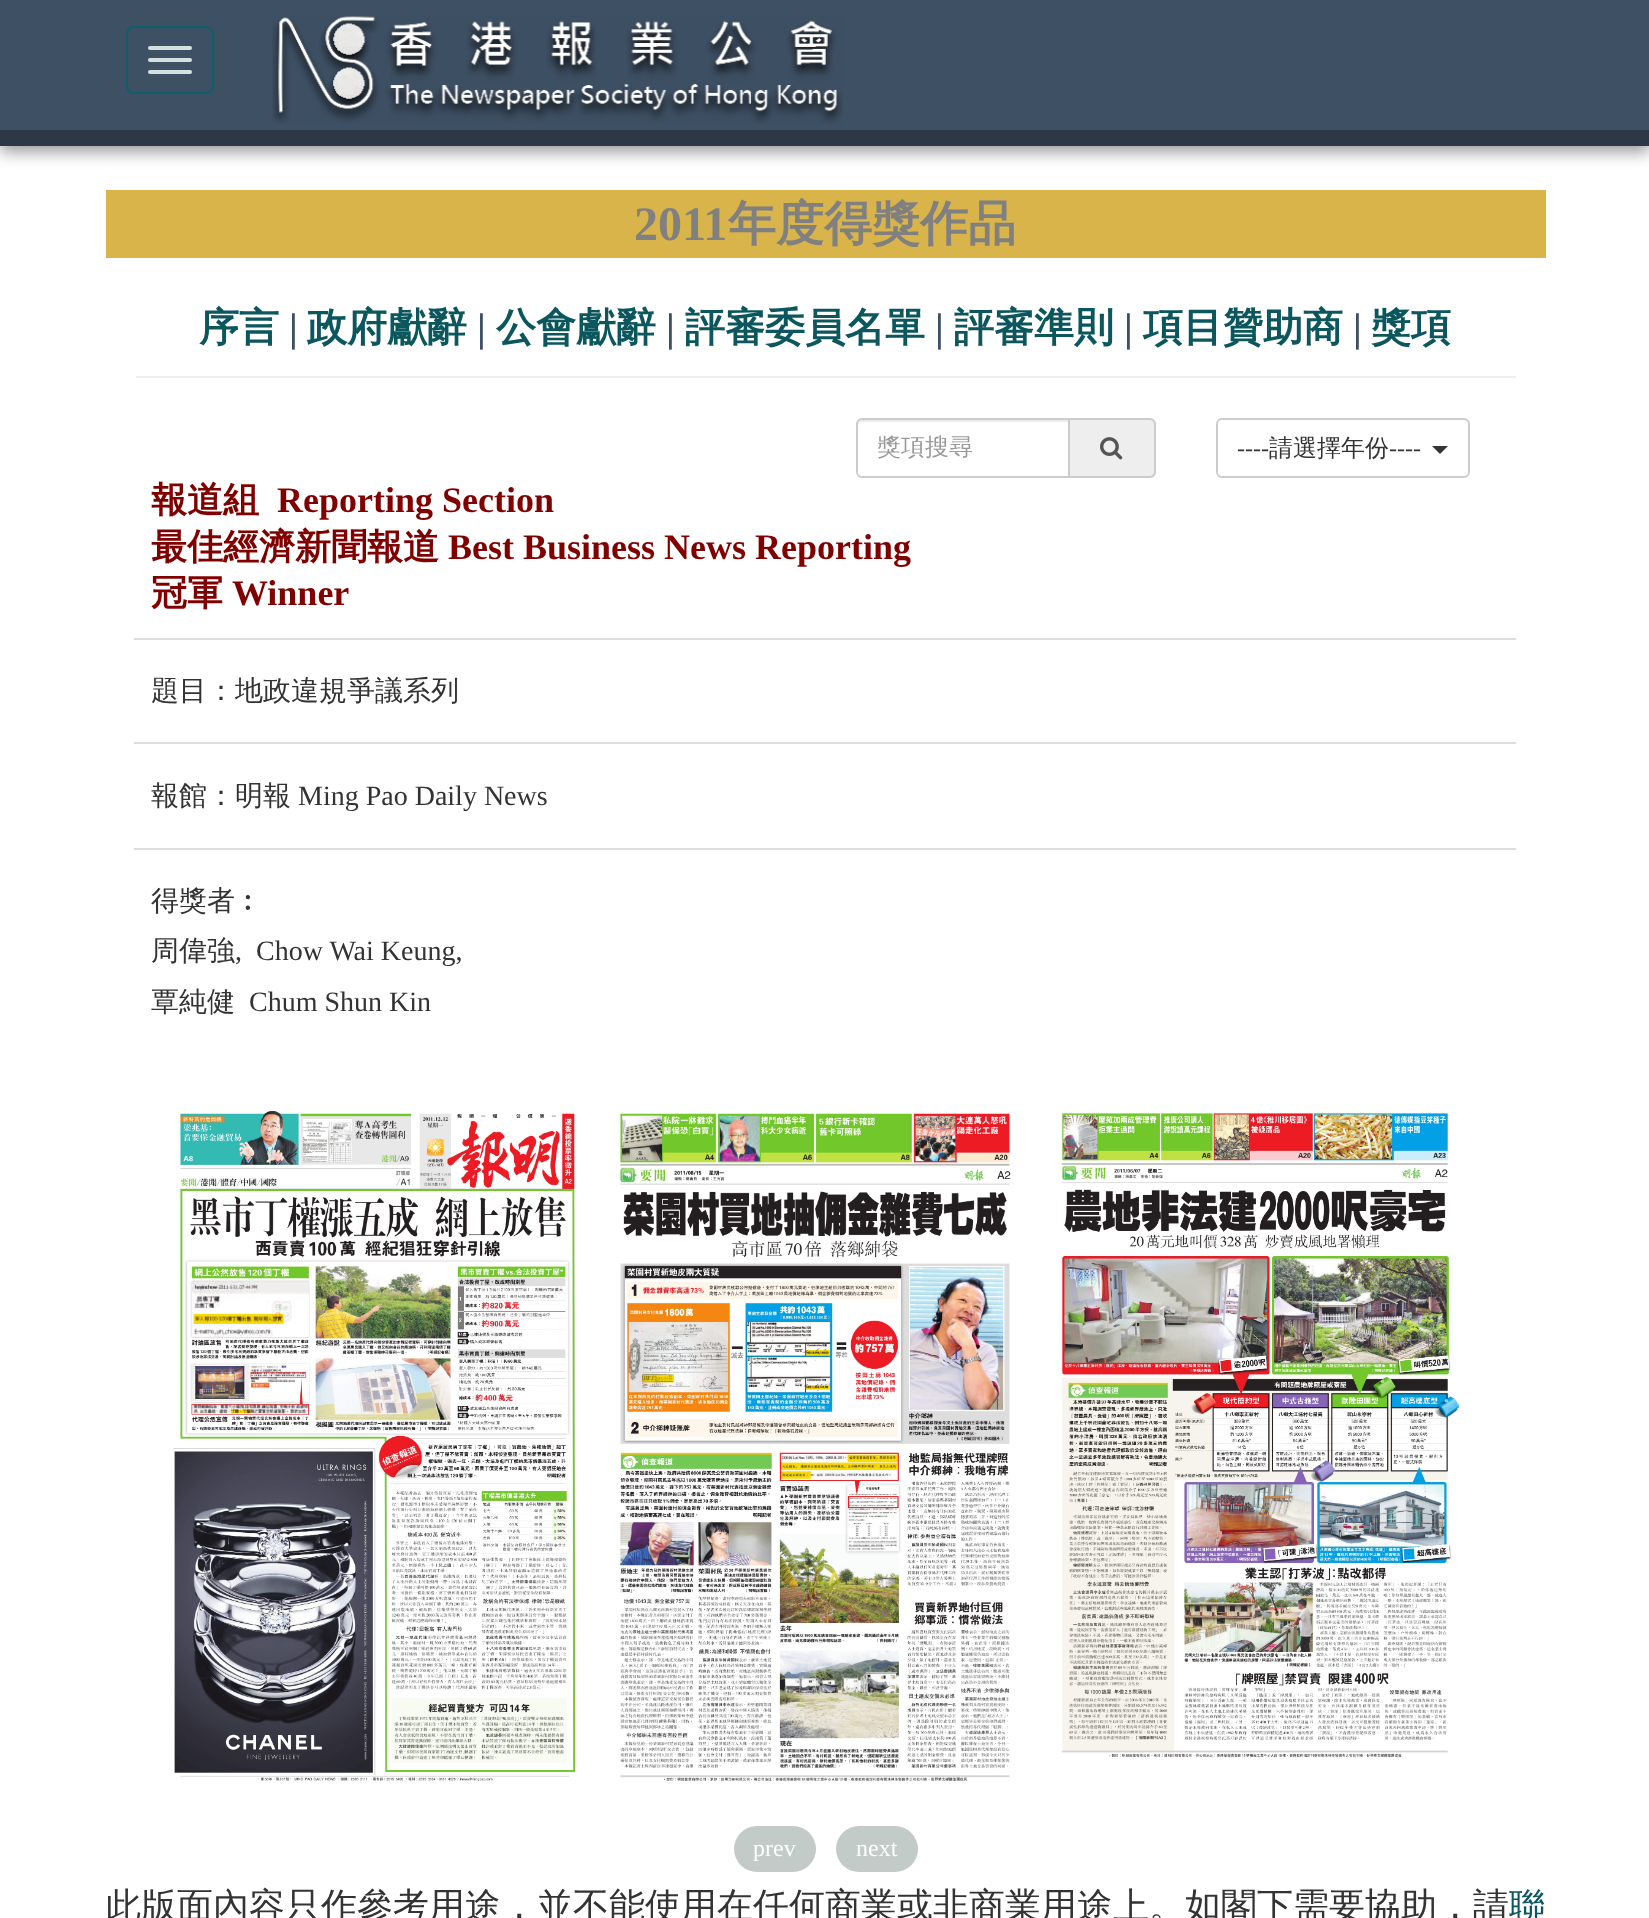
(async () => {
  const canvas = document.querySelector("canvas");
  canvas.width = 1649;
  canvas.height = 1918;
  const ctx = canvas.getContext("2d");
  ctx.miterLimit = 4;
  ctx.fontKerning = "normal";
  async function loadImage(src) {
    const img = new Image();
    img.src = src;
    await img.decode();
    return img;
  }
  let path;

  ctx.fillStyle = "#ffffff";
  ctx.fillRect(0, 0, 1649, 1918);
  ctx.fillStyle = "#999999";
  ctx.filter = "blur(8px)";
  ctx.beginPath();
  ctx.rect(0, 6, 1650, 146);
  ctx.fill();
  ctx.filter = "none";
  ctx.fillStyle = "#3e5064";
  ctx.fillRect(0, 0, 1649, 130);
  ctx.fillStyle = "#2c3846";
  ctx.fillRect(0, 130, 1649, 16);
  ctx.beginPath();
  ctx.roundRect(127, 27, 86, 66, 7);
  ctx.strokeStyle = "#0c6168";
  ctx.lineWidth = 2;
  ctx.stroke();
  ctx.fillStyle = "#d5e0e0";
  ctx.beginPath();
  ctx.roundRect(148, 46, 44, 4, 2);
  ctx.fill();
  ctx.beginPath();
  ctx.roundRect(148, 58, 44, 4, 2);
  ctx.fill();
  ctx.beginPath();
  ctx.roundRect(148, 70, 44, 4, 2);
  ctx.fill();
  ctx.drawImage(await loadImage("img/1.png"), 272, 16, 571, 108);
  ctx.fillStyle = "#d9b44b";
  ctx.fillRect(106, 190, 1440, 68);
  ctx.fillStyle = "#eeeeee";
  ctx.fillRect(136, 376, 1380, 2);
  ctx.fillStyle = "#ececec";
  path = new Path2D("M862 422H1068V420H862C858 420 858 423 858 426C858 424 860 422 862 422Z");
  ctx.fill(path);
  ctx.beginPath();
  ctx.roundRect(857, 419, 212, 58, [5, 0, 0, 5]);
  ctx.strokeStyle = "#cccccc";
  ctx.stroke();
  ctx.fillStyle = "#eeeeee";
  ctx.beginPath();
  ctx.roundRect(1070, 418, 86, 60, [0, 6, 6, 0]);
  ctx.fill();
  ctx.fillStyle = "#cccccc";
  path = new Path2D("M1070 418H1150C1153 418 1156 421 1156 424V472C1156 475 1153 478 1150 478H1070ZM1070 420H1150C1152 420 1154 422 1154 424V472C1154 474 1152 476 1150 476H1070Z");
  ctx.fill(path, "evenodd");
  ctx.drawImage(await loadImage("img/2.png"), 1100, 437, 23, 23);
  ctx.beginPath();
  ctx.roundRect(1217, 419, 252, 58, 5);
  ctx.stroke();
  ctx.fillStyle = "#333333";
  path = new Path2D("M1432 446H1448L1440 454Z");
  ctx.fill(path);
  for (const [x, y, w, h, color] of [
    [134, 638, 1382, 2, "#dddddd"],
    [134, 742, 1382, 2, "#dddddd"],
    [134, 848, 1382, 2, "#dddddd"],
  ]) {
    ctx.fillStyle = color;
    ctx.fillRect(x, y, w, h);
  }
  ctx.drawImage(await loadImage("img/3.png"), 173, 1111, 403, 670);
  ctx.drawImage(await loadImage("img/4.png"), 620, 1113, 391, 668);
  ctx.drawImage(await loadImage("img/5.png"), 1061, 1111, 399, 647);
  ctx.fillStyle = "#c3cbc8";
  ctx.beginPath();
  ctx.roundRect(734, 1826, 82, 46, 23);
  ctx.fill();
  ctx.beginPath();
  ctx.roundRect(836, 1826, 82, 46, 23);
  ctx.fill();
  ctx.font = "bold 48px Liberation Serif";
  ctx.fillStyle = "#808080";
  ctx.fillText("2011", 634, 240);
  ctx.font = "bold 48px WenQuanYi Zen Hei";
  ctx.fillText("年度得獎作品", 728, 240);
  ctx.font = "bold 40px WenQuanYi Zen Hei";
  ctx.fillStyle = "#0b575d";
  ctx.fillText("序言", 199, 341);
  ctx.font = "bold 40px Liberation Serif";
  ctx.fillStyle = "#3e5064";
  ctx.fillText("|", 289, 341);
  ctx.font = "bold 40px WenQuanYi Zen Hei";
  ctx.fillStyle = "#0b575d";
  ctx.fillText("政府獻辭", 307, 341);
  ctx.font = "bold 40px Liberation Serif";
  ctx.fillStyle = "#3e5064";
  ctx.fillText("|", 477, 341);
  ctx.font = "bold 40px WenQuanYi Zen Hei";
  ctx.fillStyle = "#0b575d";
  ctx.fillText("公會獻辭", 496, 341);
  ctx.font = "bold 40px Liberation Serif";
  ctx.fillStyle = "#3e5064";
  ctx.fillText("|", 666, 341);
  ctx.font = "bold 40px WenQuanYi Zen Hei";
  ctx.fillStyle = "#0b575d";
  ctx.fillText("評審委員名單", 685, 341);
  ctx.font = "bold 40px Liberation Serif";
  ctx.fillStyle = "#3e5064";
  ctx.fillText("|", 935, 341);
  ctx.font = "bold 40px WenQuanYi Zen Hei";
  ctx.fillStyle = "#0b575d";
  ctx.fillText("評審準則", 954, 341);
  ctx.font = "bold 40px Liberation Serif";
  ctx.fillStyle = "#3e5064";
  ctx.fillText("|", 1124, 341);
  ctx.font = "bold 40px WenQuanYi Zen Hei";
  ctx.fillStyle = "#0b575d";
  ctx.fillText("項目贊助商", 1143, 341);
  ctx.font = "bold 40px Liberation Serif";
  ctx.fillStyle = "#3e5064";
  ctx.fillText("|", 1353, 341);
  ctx.font = "bold 40px WenQuanYi Zen Hei";
  ctx.fillStyle = "#0b575d";
  ctx.fillText("獎項", 1371, 341);
  ctx.font = "500 24px WenQuanYi Zen Hei";
  ctx.fillStyle = "#999999";
  ctx.fillText("獎項搜尋", 877, 455);
  ctx.font = "24px Liberation Serif";
  ctx.fillStyle = "#333333";
  ctx.fillText("----", 1237, 456);
  ctx.font = "500 24px WenQuanYi Zen Hei";
  ctx.fillText("請選擇年份", 1269, 456);
  ctx.font = "24px Liberation Serif";
  ctx.fillText("----", 1389, 456);
  ctx.font = "bold 36px WenQuanYi Zen Hei";
  ctx.fillStyle = "#800000";
  ctx.fillText("報道組", 151, 512);
  ctx.font = "bold 36px Liberation Serif";
  ctx.fillText("Reporting Section", 277, 512);
  ctx.font = "bold 36px WenQuanYi Zen Hei";
  ctx.fillText("最佳經濟新聞報道", 151, 559);
  ctx.font = "bold 36px Liberation Serif";
  ctx.fillText("Best Business News Reporting", 448, 559);
  ctx.font = "bold 36px WenQuanYi Zen Hei";
  ctx.fillText("冠軍", 151, 605);
  ctx.font = "bold 36px Liberation Serif";
  ctx.fillText("Winner", 232, 605);
  ctx.font = "500 28px WenQuanYi Zen Hei";
  ctx.fillStyle = "#333333";
  ctx.fillText("題目：地政違規爭議系列", 151, 700);
  ctx.fillText("報館：明報", 151, 805);
  ctx.font = "28px Liberation Serif";
  ctx.fillText("Ming Pao Daily News", 298, 805);
  ctx.font = "500 28px WenQuanYi Zen Hei";
  ctx.fillText("得獎者︰", 151, 910);
  ctx.fillText("周偉強", 151, 960);
  ctx.font = "28px Liberation Serif";
  ctx.fillText(",  Chow Wai Keung,", 235, 960);
  ctx.font = "500 28px WenQuanYi Zen Hei";
  ctx.fillText("覃純健", 151, 1011);
  ctx.font = "28px Liberation Serif";
  ctx.fillText("Chum Shun Kin", 249, 1011);
  ctx.font = "24px Liberation Serif";
  ctx.fillStyle = "#ffffff";
  ctx.fillText("prev", 753, 1856);
  ctx.fillText("next", 856, 1856);
  ctx.font = "500 36px WenQuanYi Zen Hei";
  ctx.fillStyle = "#333333";
  ctx.fillText("此版面內容只作參考用途，並不能使用在任何商業或非商業用途上。如閣下需要協助，請", 105, 1918);
  ctx.fillStyle = "#0b575d";
  ctx.fillText("聯", 1509, 1918);
})();
